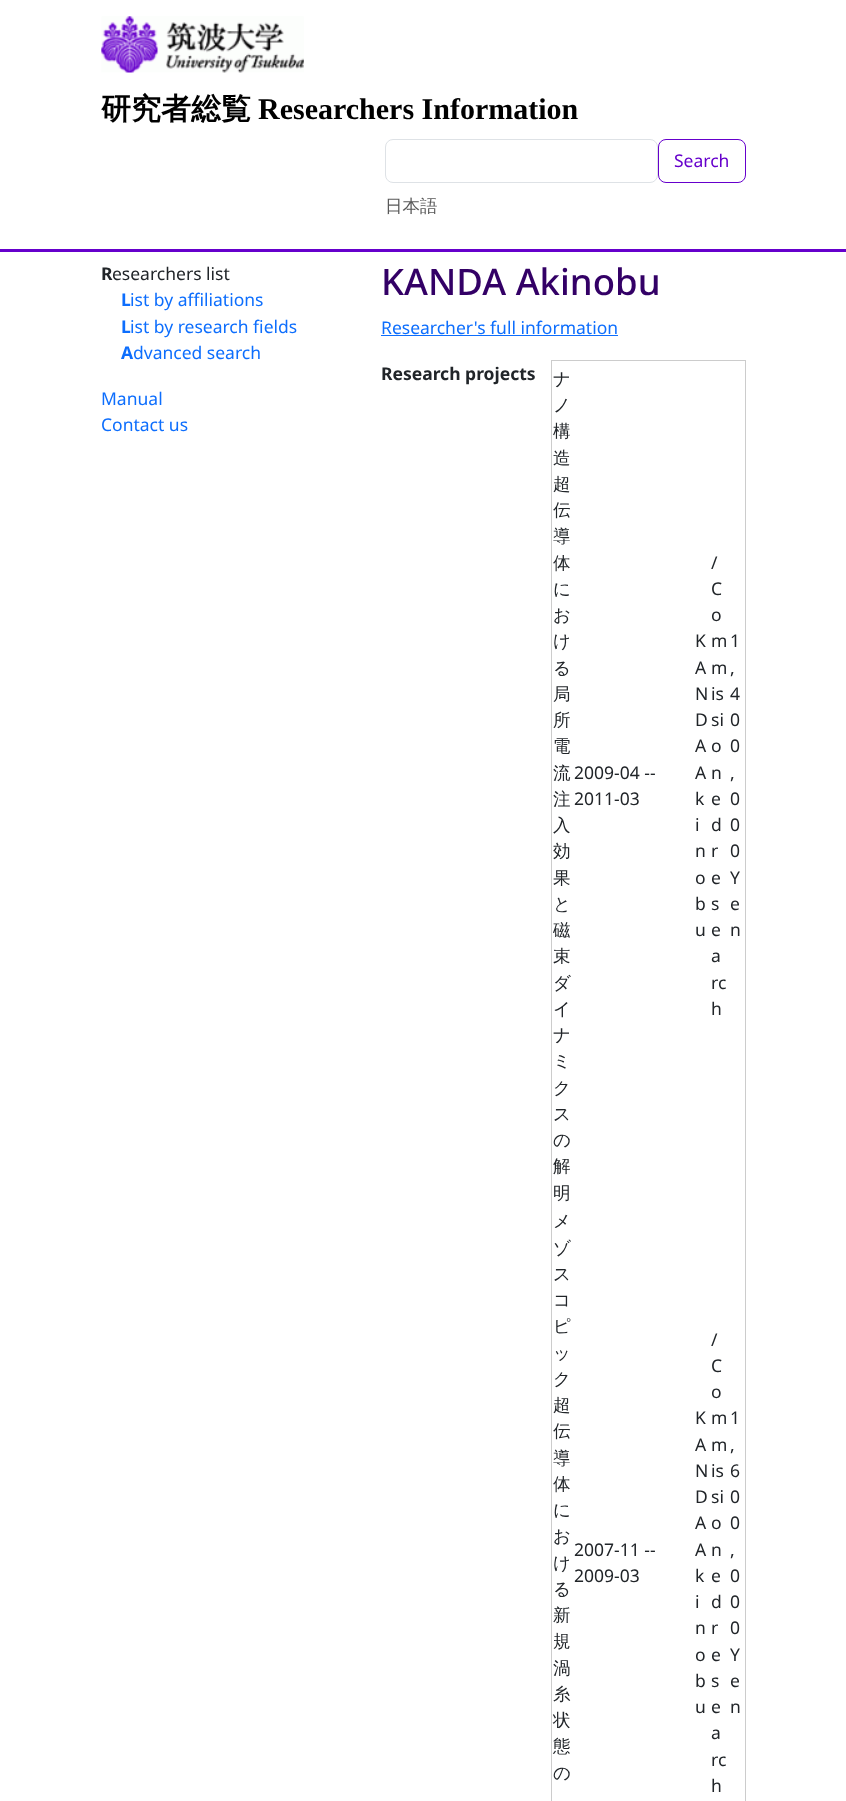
(async () => {
  const canvas = document.querySelector("canvas");
  canvas.width = 846;
  canvas.height = 1801;
  const ctx = canvas.getContext("2d");
  ctx.miterLimit = 4;
  ctx.fontKerning = "normal";
  async function loadImage(src) {
    const img = new Image();
    img.src = src;
    await img.decode();
    return img;
  }

  ctx.fillStyle = "#ffffff";
  ctx.fillRect(0, 0, 846, 1801);
  ctx.fillStyle = "#6600cc";
  ctx.fillRect(0, 249, 846, 3);
  ctx.drawImage(await loadImage("img/1.png"), 101, 16, 203, 57);
  ctx.beginPath();
  ctx.roundRect(385.5, 139.5, 272, 43, 7.5);
  ctx.strokeStyle = "#dee2e6";
  ctx.stroke();
  ctx.beginPath();
  ctx.roundRect(658.5, 139.5, 87, 43, 7.5);
  ctx.strokeStyle = "#6600cc";
  ctx.stroke();
  for (const [x, y, w, h, color] of [
    [381, 335, 237, 1, "#0d6efd"],
    [551, 360, 195, 1, "#cccccc"],
    [745, 360, 1, 1441, "#cccccc"],
    [551, 360, 1, 1441, "#cccccc"],
  ]) {
    ctx.fillStyle = color;
    ctx.fillRect(x, y, w, h);
  }
  ctx.font = "bold 30px WenQuanYi Zen Hei";
  ctx.fillStyle = "#000000";
  ctx.fillText("研究者総覧", 101, 119);
  ctx.font = "bold 30px Liberation Serif";
  ctx.fillText("Researchers Information", 258, 119);
  ctx.font = "17.5px Noto Sans";
  ctx.fillStyle = "#6600cc";
  ctx.fillText("Search", 674, 167);
  ctx.font = "500 17.5px WenQuanYi Zen Hei";
  ctx.fillStyle = "#595959";
  ctx.fillText("日本語", 385, 212);
  ctx.font = "bold 17.5px Noto Sans";
  ctx.fillStyle = "#212529";
  ctx.fillText("R", 101, 280);
  ctx.font = "17.5px Noto Sans";
  ctx.fillText("esearchers list", 112, 280);
  ctx.font = "bold 17.5px Noto Sans";
  ctx.fillStyle = "#0d6efd";
  ctx.fillText("L", 121, 306);
  ctx.font = "17.5px Noto Sans";
  ctx.fillText("ist by affiliations", 130, 306);
  ctx.font = "bold 17.5px Noto Sans";
  ctx.fillText("L", 121, 333);
  ctx.font = "17.5px Noto Sans";
  ctx.fillText("ist by research fields", 130, 333);
  ctx.font = "bold 17.5px Noto Sans";
  ctx.fillText("A", 121, 359);
  ctx.font = "17.5px Noto Sans";
  for (const [text, x, y] of [
    ["dvanced search", 133, 359],
    ["Manual", 101, 405],
    ["Contact us", 101, 431],
  ]) {
    ctx.fillText(text, x, y);
  }
  ctx.font = "500 36.5px Noto Sans";
  ctx.fillStyle = "#330066";
  ctx.fillText("KANDA Akinobu", 381, 295);
  ctx.font = "17.5px Noto Sans";
  ctx.fillStyle = "#0d6efd";
  ctx.fillText("Researcher's full information", 381, 334);
  ctx.font = "bold 17.5px Noto Sans";
  ctx.fillStyle = "#212529";
  ctx.fillText("Research projects", 381, 380);
  ctx.font = "500 17.5px WenQuanYi Zen Hei";
  for (const [text, x, y] of [
    ["ナ", 553, 385],
    ["ノ", 553, 411],
    ["構", 553, 437],
    ["造", 553, 464],
    ["超", 553, 490],
    ["伝", 553, 516],
    ["導", 553, 542],
    ["体", 553, 569],
    ["に", 553, 595],
    ["お", 553, 621],
    ["け", 553, 647],
    ["る", 553, 674],
    ["局", 553, 700],
    ["所", 553, 726],
    ["電", 553, 752],
    ["流", 553, 779],
    ["注", 553, 805],
    ["入", 553, 831],
    ["効", 553, 857],
    ["果", 553, 884],
    ["と", 553, 910],
    ["磁", 553, 936],
    ["束", 553, 962],
    ["ダ", 553, 989],
    ["イ", 553, 1015],
    ["ナ", 553, 1041],
    ["ミ", 553, 1067],
    ["ク", 553, 1094],
    ["ス", 553, 1120],
    ["の", 553, 1146],
    ["解", 553, 1172],
    ["明", 553, 1199],
  ]) {
    ctx.fillText(text, x, y);
  }
  ctx.font = "17.5px Noto Sans";
  for (const [text, x, y] of [
    ["2009-04 --", 574, 779],
    ["2011-03", 574, 805],
    ["K", 695, 647],
    ["A", 695, 674],
    ["N", 695, 700],
    ["D", 695, 726],
    ["A", 695, 752],
    ["A", 695, 779],
    ["k", 695, 805],
    ["i", 695, 831],
    ["n", 695, 857],
    ["o", 695, 884],
    ["b", 695, 910],
    ["u", 695, 936],
    ["/", 711, 569],
    ["C", 711, 595],
    ["o", 711, 621],
    ["m", 711, 647],
    ["m", 711, 674],
    ["is", 711, 700],
    ["si", 711, 726],
    ["o", 711, 752],
    ["n", 711, 779],
    ["e", 711, 805],
    ["d", 711, 831],
    ["r", 711, 857],
    ["e", 711, 884],
    ["s", 711, 910],
    ["e", 711, 936],
    ["a", 711, 962],
    ["rc", 711, 989],
    ["h", 711, 1015],
    ["1", 730, 647],
    [",", 730, 674],
    ["4", 730, 700],
    ["0", 730, 726],
    ["0", 730, 752],
    [",", 730, 779],
    ["0", 730, 805],
    ["0", 730, 831],
    ["0", 730, 857],
    ["Y", 730, 884],
    ["e", 730, 910],
    ["n", 730, 936],
  ]) {
    ctx.fillText(text, x, y);
  }
  ctx.font = "500 17.5px WenQuanYi Zen Hei";
  for (const [text, x, y] of [
    ["メ", 553, 1227],
    ["ゾ", 553, 1254],
    ["ス", 553, 1280],
    ["コ", 553, 1306],
    ["ピ", 553, 1332],
    ["ッ", 553, 1359],
    ["ク", 553, 1385],
    ["超", 553, 1411],
    ["伝", 553, 1437],
    ["導", 553, 1464],
    ["体", 553, 1490],
    ["に", 553, 1516],
    ["お", 553, 1542],
    ["け", 553, 1569],
    ["る", 553, 1595],
    ["新", 553, 1621],
    ["規", 553, 1647],
    ["渦", 553, 1674],
    ["糸", 553, 1700],
    ["状", 553, 1726],
    ["態", 553, 1752],
    ["の", 553, 1779],
  ]) {
    ctx.fillText(text, x, y);
  }
  ctx.font = "17.5px Noto Sans";
  for (const [text, x, y] of [
    ["2007-11 --", 574, 1556],
    ["2009-03", 574, 1582],
    ["K", 695, 1424],
    ["A", 695, 1451],
    ["N", 695, 1477],
    ["D", 695, 1503],
    ["A", 695, 1529],
    ["A", 695, 1556],
    ["k", 695, 1582],
    ["i", 695, 1608],
    ["n", 695, 1634],
    ["o", 695, 1661],
    ["b", 695, 1687],
    ["u", 695, 1713],
    ["/", 711, 1346],
    ["C", 711, 1372],
    ["o", 711, 1398],
    ["m", 711, 1424],
    ["m", 711, 1451],
    ["is", 711, 1477],
    ["si", 711, 1503],
    ["o", 711, 1529],
    ["n", 711, 1556],
    ["e", 711, 1582],
    ["d", 711, 1608],
    ["r", 711, 1634],
    ["e", 711, 1661],
    ["s", 711, 1687],
    ["e", 711, 1713],
    ["a", 711, 1739],
    ["rc", 711, 1766],
    ["h", 711, 1792],
    ["1", 730, 1424],
    [",", 730, 1451],
    ["6", 730, 1477],
    ["0", 730, 1503],
    ["0", 730, 1529],
    [",", 730, 1556],
    ["0", 730, 1582],
    ["0", 730, 1608],
    ["0", 730, 1634],
    ["Y", 730, 1661],
    ["e", 730, 1687],
    ["n", 730, 1713],
  ]) {
    ctx.fillText(text, x, y);
  }
})();
